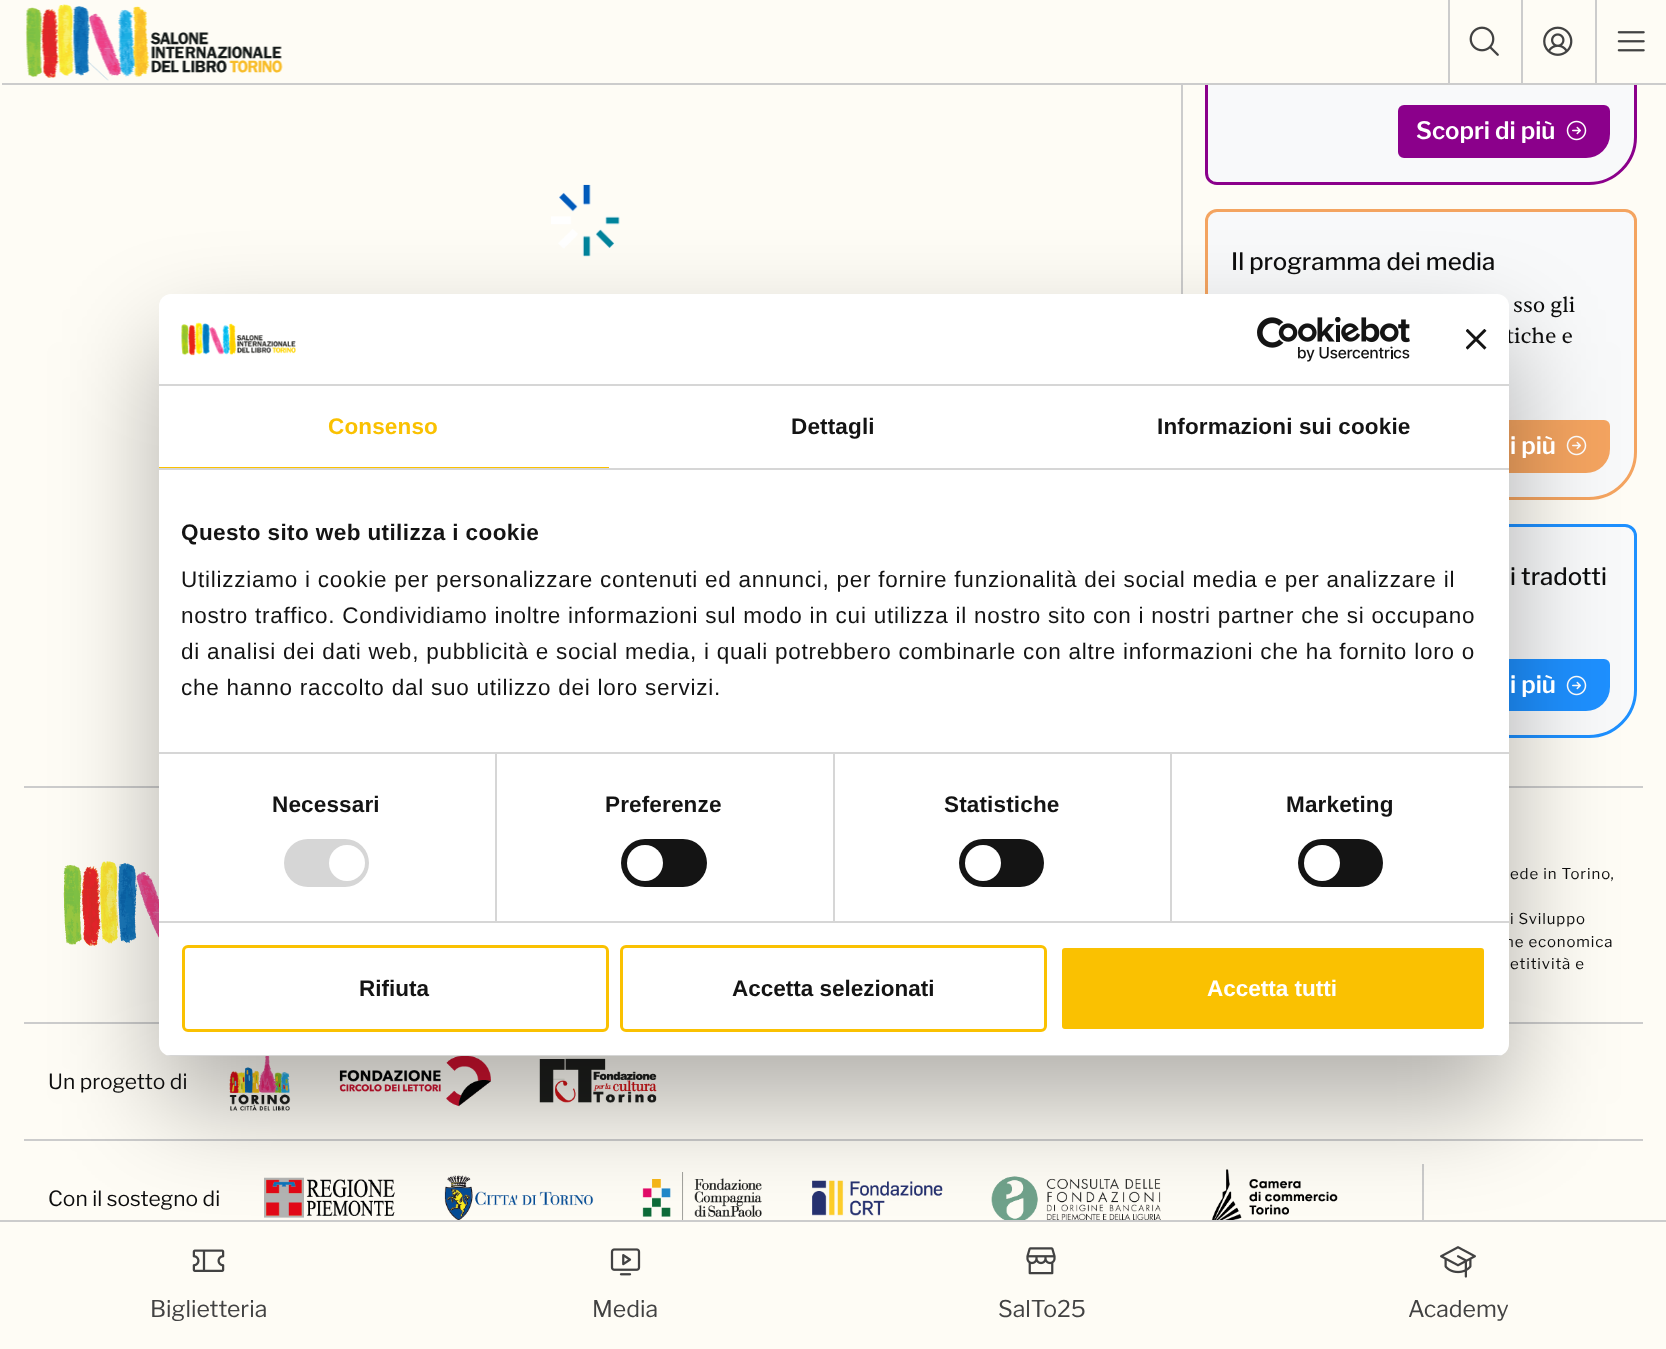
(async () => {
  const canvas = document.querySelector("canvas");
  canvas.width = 1666;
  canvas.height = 1349;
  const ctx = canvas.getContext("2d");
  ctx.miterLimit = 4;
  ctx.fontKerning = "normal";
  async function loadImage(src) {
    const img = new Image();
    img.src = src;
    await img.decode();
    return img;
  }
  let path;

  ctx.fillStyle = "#fefcf5";
  ctx.fillRect(0, 0, 1666, 1349);
  ctx.fillStyle = "#f8f9fa";
  path = new Path2D("M1217-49.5H1625C1631-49.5 1635.5-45 1635.5-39V137C1635.5 162.5 1614.5 183.5 1589 183.5H1217C1211 183.5 1206.5 179 1206.5 173V-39C1206.5-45 1211-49.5 1217-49.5Z");
  ctx.fill(path);
  ctx.strokeStyle = "#8b008b";
  ctx.lineWidth = 3;
  ctx.stroke(path);
  ctx.fillStyle = "#fefcf5";
  ctx.fillRect(1205, 0, 432, 83);
  ctx.drawImage(await loadImage("img/1.png"), 25, 4, 258, 77);
  ctx.fillStyle = "#cccccc";
  ctx.fillRect(1448, 0, 2, 84);
  ctx.drawImage(await loadImage("img/2.png"), 1469, 26, 30, 30);
  ctx.fillRect(1521, 0, 2, 84);
  ctx.drawImage(await loadImage("img/3.png"), 1543, 26, 30, 30);
  ctx.fillRect(1595, 0, 2, 84);
  ctx.drawImage(await loadImage("img/4.png"), 1617, 31, 28, 21);
  ctx.fillRect(2, 83, 1664, 2);
  ctx.drawImage(await loadImage("img/5.png"), 551, 184, 69, 73);
  ctx.fillRect(1181, 85, 2, 209);
  ctx.fillStyle = "#8b008b";
  ctx.beginPath();
  ctx.roundRect(1398, 105, 212, 53, [6, 6, 24, 6]);
  ctx.fill();
  ctx.drawImage(await loadImage("img/6.png"), 1566, 120, 21, 21);
  ctx.fillStyle = "#f8f9fa";
  ctx.beginPath();
  ctx.roundRect(1206.5, 210.5, 429, 288, [10.5, 10.5, 46.5, 10.5]);
  ctx.fill();
  ctx.strokeStyle = "#f4a460";
  ctx.stroke();
  ctx.fillStyle = "#f4a460";
  ctx.beginPath();
  ctx.roundRect(1398, 420, 212, 53, [6, 6, 24, 6]);
  ctx.fill();
  ctx.drawImage(await loadImage("img/7.png"), 1566, 435, 21, 21);
  ctx.fillStyle = "#f8f9fa";
  ctx.beginPath();
  ctx.roundRect(1206.5, 525.5, 429, 211, [10.5, 10.5, 46.5, 10.5]);
  ctx.fill();
  ctx.strokeStyle = "#1e90ff";
  ctx.stroke();
  ctx.fillStyle = "#1e90ff";
  ctx.beginPath();
  ctx.roundRect(1398, 659, 212, 52, [6, 6, 24, 6]);
  ctx.fill();
  ctx.drawImage(await loadImage("img/8.png"), 1566, 675, 21, 21);
  ctx.fillStyle = "#cccccc";
  ctx.fillRect(24, 786, 1619, 2);
  ctx.drawImage(await loadImage("img/9.png"), 63, 861, 96, 86);
  ctx.fillRect(24, 1022, 1619, 2);
  ctx.drawImage(await loadImage("img/10.png"), 229, 1056, 62, 55);
  ctx.drawImage(await loadImage("img/11.png"), 339, 1056, 152, 51);
  ctx.drawImage(await loadImage("img/12.png"), 539, 1058, 118, 45);
  ctx.fillRect(24, 1139, 1619, 2);
  ctx.drawImage(await loadImage("img/13.png"), 264, 1177, 131, 41);
  ctx.drawImage(await loadImage("img/14.png"), 444, 1175, 150, 45);
  ctx.drawImage(await loadImage("img/15.png"), 642, 1172, 120, 48);
  ctx.drawImage(await loadImage("img/16.png"), 812, 1180, 131, 36);
  ctx.drawImage(await loadImage("img/17.png"), 991, 1176, 170, 44);
  ctx.drawImage(await loadImage("img/18.png"), 1211, 1169, 127, 51);
  ctx.fillRect(1422, 1164, 2, 56);
  ctx.fillRect(0, 1220, 1666, 2);
  ctx.drawImage(await loadImage("img/19.png"), 192, 1249, 33, 23);
  ctx.drawImage(await loadImage("img/20.png"), 610, 1248, 31, 28);
  ctx.drawImage(await loadImage("img/21.png"), 1026, 1247, 30, 28);
  ctx.drawImage(await loadImage("img/22.png"), 1440, 1246, 36, 32);
  ctx.fillStyle = "rgba(0, 0, 0, 0.3)";
  ctx.filter = "blur(51px)";
  ctx.beginPath();
  ctx.roundRect(159, 342, 1350, 762, 12);
  ctx.fill();
  ctx.filter = "none";
  ctx.font = "600 24px Libre Franklin";
  ctx.fillStyle = "#ffffff";
  ctx.fillText("Scopri di più", 1416, 139);
  ctx.font = "500 24px Libre Franklin";
  ctx.fillStyle = "#0d0d0d";
  ctx.fillText("Il programma dei media", 1231, 270);
  ctx.font = "21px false";
  ctx.fillText("sso gli", 1513, 312);
  ctx.fillText("tiche e", 1506, 343);
  ctx.font = "600 24px Libre Franklin";
  ctx.fillStyle = "#ffffff";
  ctx.fillText("i più", 1510, 454);
  ctx.font = "500 24px Libre Franklin";
  ctx.fillStyle = "#0d0d0d";
  ctx.fillText("i tradotti", 1510, 585);
  ctx.font = "600 24px Libre Franklin";
  ctx.fillStyle = "#ffffff";
  ctx.fillText("i più", 1510, 693);
  ctx.letterSpacing = "0.9px";
  ctx.font = "15px Libre Franklin";
  ctx.fillStyle = "#0d0d0d";
  for (const [text, x, y] of [
    ["ede in Torino,", 1510, 879],
    ["i Sviluppo", 1510, 924],
    ["ne economica", 1505, 947],
    ["etitività e", 1510, 969],
  ]) {
    ctx.fillText(text, x, y);
  }
  ctx.letterSpacing = "0px";
  ctx.font = "21px Libre Franklin";
  ctx.fillText("Un progetto di", 48, 1089);
  ctx.fillText("Con il sostegno di", 48, 1206);
  ctx.font = "23px Libre Franklin";
  ctx.fillStyle = "#424242";
  for (const [text, x, y] of [
    ["Biglietteria", 150, 1317],
    ["Media", 592, 1317],
    ["SalTo25", 998, 1317],
    ["Academy", 1408, 1317],
  ]) {
    ctx.fillText(text, x, y);
  }
  ctx.fillStyle = "#ffffff";
  ctx.beginPath();
  ctx.roundRect(159, 294, 1350, 762, 12);
  ctx.fill();
  ctx.fillStyle = "#d6d6d6";
  ctx.fillRect(159, 384, 1350, 2);
  ctx.drawImage(await loadImage("img/23.png"), 181, 322, 115, 34);
  ctx.drawImage(await loadImage("img/24.png"), 1257, 317, 153, 45);
  ctx.drawImage(await loadImage("img/25.png"), 1466, 329, 21, 21);
  ctx.fillRect(159, 468, 1350, 2);
  ctx.fillStyle = "#fac101";
  ctx.fillRect(159, 467, 450, 1);
  ctx.letterSpacing = "0.15px";
  ctx.font = "bold 22.5px Liberation Sans";
  ctx.fillText("Consenso", 328, 434);
  ctx.fillStyle = "#141414";
  ctx.fillText("Dettagli", 791, 434);
  ctx.fillText("Informazioni sui cookie", 1157, 434);
  ctx.letterSpacing = "0.4px";
  ctx.fillText("Questo sito web utilizza i cookie", 181, 540);
  ctx.letterSpacing = "0.75px";
  ctx.font = "22.5px Liberation Sans";
  for (const [text, x, y] of [
    ["Utilizziamo i cookie per personalizzare contenuti ed annunci, per fornire funzionalità dei social media e per analizzare il", 181, 587],
    ["nostro traffico. Condividiamo inoltre informazioni sul modo in cui utilizza il nostro sito con i nostri partner che si occupano", 181, 623],
    ["di analisi dei dati web, pubblicità e social media, i quali potrebbero combinarle con altre informazioni che ha fornito loro o", 181, 659],
    ["che hanno raccolto dal suo utilizzo dei loro servizi.", 181, 695],
  ]) {
    ctx.fillText(text, x, y);
  }
  ctx.fillStyle = "#d6d6d6";
  ctx.fillRect(159, 921, 1350, 2);
  ctx.fillRect(495, 753, 2, 168);
  ctx.letterSpacing = "0.15px";
  ctx.font = "bold 22.5px Liberation Sans";
  ctx.fillStyle = "#141414";
  ctx.fillText("Necessari", 272, 812);
  ctx.fillStyle = "#d6d6d6";
  ctx.beginPath();
  ctx.roundRect(284, 839, 85, 48, 24);
  ctx.fill();
  ctx.fillStyle = "#ffffff";
  ctx.beginPath();
  ctx.arc(347, 863, 18, 0, Math.PI * 2);
  ctx.fill();
  ctx.fillStyle = "#d6d6d6";
  ctx.fillRect(833, 753, 2, 168);
  ctx.fillStyle = "#141414";
  ctx.fillText("Preferenze", 605, 812);
  ctx.beginPath();
  ctx.roundRect(621, 839, 86, 48, 24);
  ctx.fill();
  ctx.fillStyle = "#ffffff";
  ctx.beginPath();
  ctx.arc(645, 863, 18, 0, Math.PI * 2);
  ctx.fill();
  ctx.fillStyle = "#d6d6d6";
  ctx.fillRect(1170, 753, 2, 168);
  ctx.fillRect(159, 752, 1350, 2);
  ctx.fillStyle = "#141414";
  ctx.fillText("Statistiche", 944, 812);
  ctx.beginPath();
  ctx.roundRect(959, 839, 85, 48, 24);
  ctx.fill();
  ctx.fillStyle = "#ffffff";
  ctx.beginPath();
  ctx.arc(983, 863, 18, 0, Math.PI * 2);
  ctx.fill();
  ctx.fillStyle = "#141414";
  ctx.fillText("Marketing", 1286, 812);
  ctx.beginPath();
  ctx.roundRect(1298, 839, 85, 48, 24);
  ctx.fill();
  ctx.fillStyle = "#ffffff";
  ctx.beginPath();
  ctx.arc(1322, 863, 18, 0, Math.PI * 2);
  ctx.fill();
  ctx.save();
  ctx.beginPath();
  ctx.roundRect(159, 294, 1350, 762, 12);
  ctx.clip();
  ctx.fillStyle = "#d6d6d6";
  ctx.fillRect(159, 1055, 1350, 1);
  ctx.restore();
  ctx.beginPath();
  ctx.roundRect(183.5, 946.5, 424, 84, 4.5);
  ctx.strokeStyle = "#fac101";
  ctx.stroke();
  ctx.letterSpacing = "0px";
  ctx.fillStyle = "#141414";
  ctx.fillText("Rifiuta", 359, 996);
  ctx.beginPath();
  ctx.roundRect(621.5, 946.5, 424, 84, 4.5);
  ctx.stroke();
  ctx.fillText("Accetta selezionati", 732, 996);
  ctx.fillStyle = "#fac101";
  ctx.beginPath();
  ctx.roundRect(1060.5, 946.5, 425, 84, 4.5);
  ctx.fill();
  ctx.strokeStyle = "#ffffff";
  ctx.stroke();
  ctx.fillStyle = "#ffffff";
  ctx.fillText("Accetta tutti", 1207, 996);
})();
